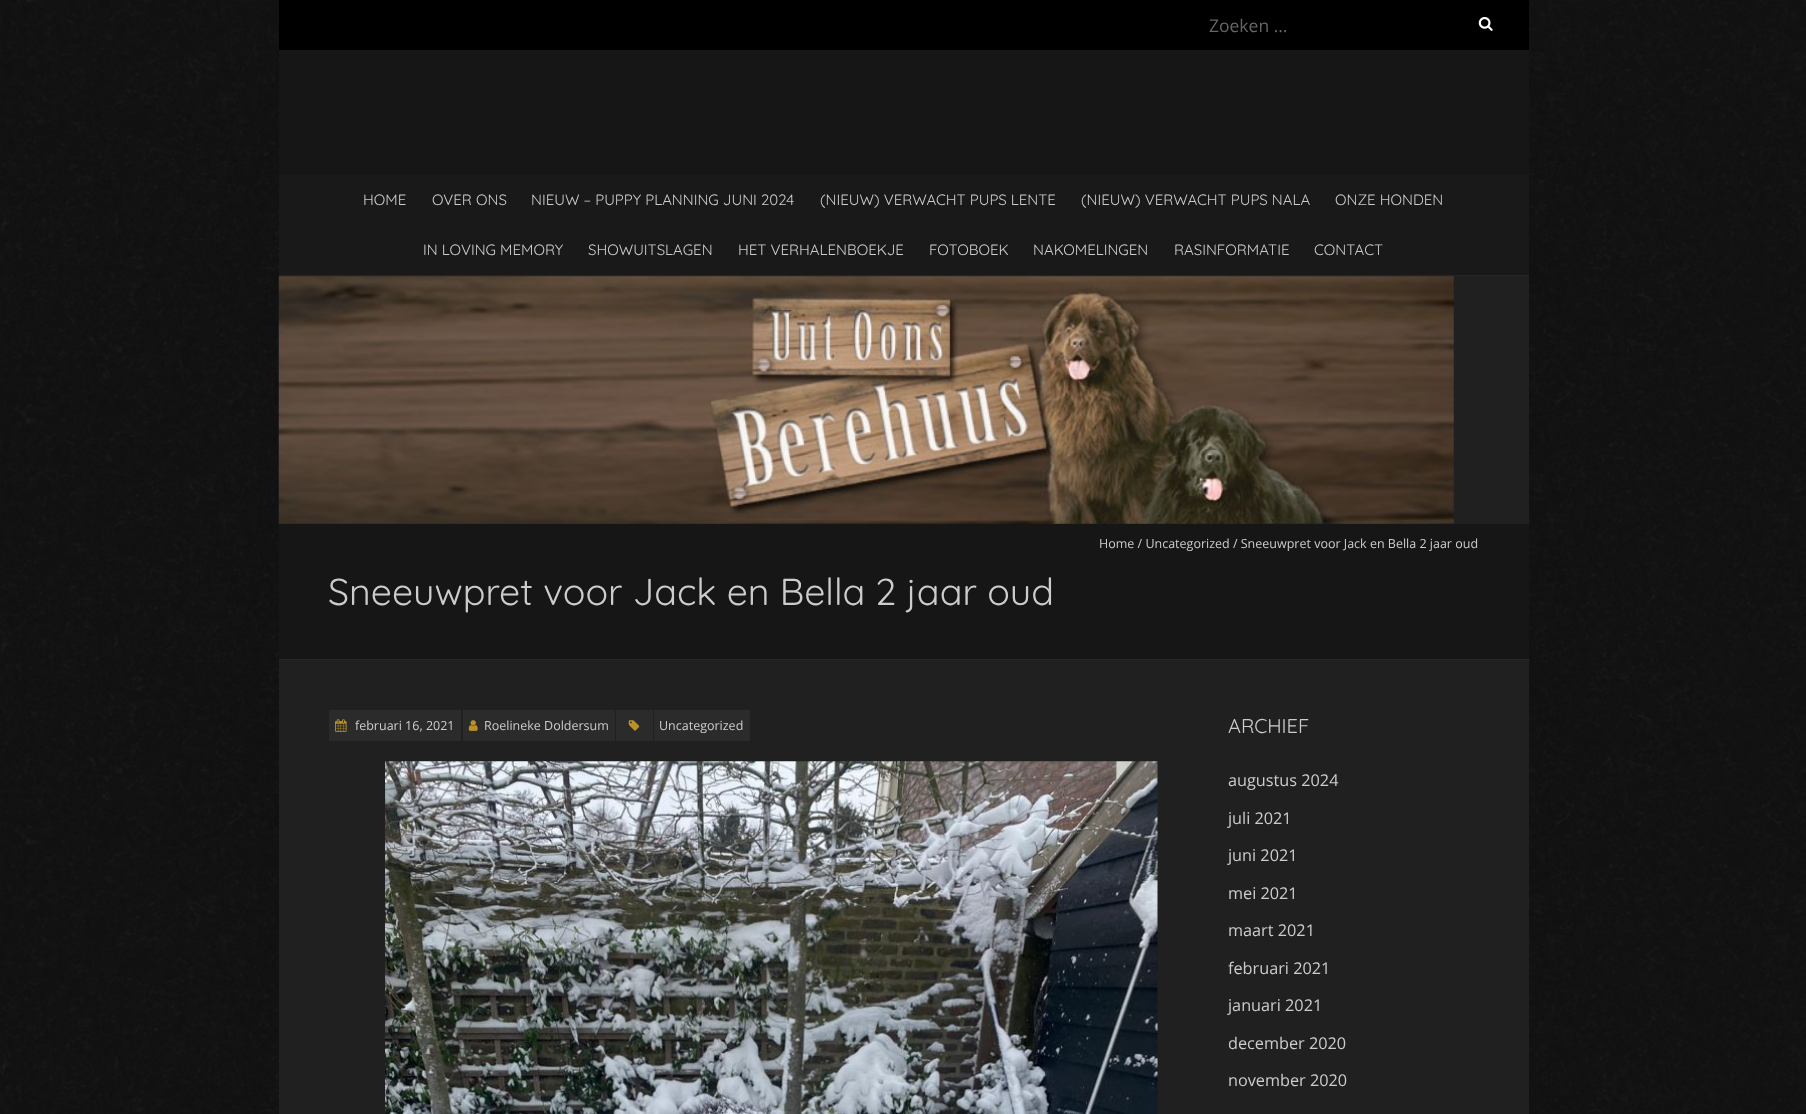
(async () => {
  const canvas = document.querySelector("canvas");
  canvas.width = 1806;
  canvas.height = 1114;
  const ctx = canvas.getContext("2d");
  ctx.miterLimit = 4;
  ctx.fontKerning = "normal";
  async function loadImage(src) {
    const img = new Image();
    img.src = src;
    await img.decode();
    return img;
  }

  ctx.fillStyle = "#ffffff";
  ctx.fillRect(0, 0, 1806, 1114);
  ctx.drawImage(await loadImage("img/1.png"), 0, 0, 1806, 1114);
  ctx.fillStyle = "#202020";
  ctx.fillRect(279, 276, 1250, 838);
  ctx.fillStyle = "#000000";
  ctx.fillRect(279, 0, 1250, 50);
  ctx.drawImage(await loadImage("img/2.png"), 1478, 17, 15, 14);
  for (const [x, y, w, h, color] of [
    [279, 50, 1250, 125, "#161616"],
    [279, 175, 1250, 100, "#191919"],
    [279, 275, 1250, 1, "#252525"],
  ]) {
    ctx.fillStyle = color;
    ctx.fillRect(x, y, w, h);
  }
  ctx.drawImage(await loadImage("img/3.png"), 278, 276, 1176, 248);
  for (const [x, y, w, h, color] of [
    [279, 524, 1250, 135, "#161616"],
    [279, 659, 1250, 1, "#292929"],
    [329, 710, 132, 31, "#2b2b2b"],
  ]) {
    ctx.fillStyle = color;
    ctx.fillRect(x, y, w, h);
  }
  ctx.drawImage(await loadImage("img/4.png"), 335, 719, 12, 13);
  ctx.fillRect(463, 710, 152, 31);
  ctx.drawImage(await loadImage("img/5.png"), 468, 720, 10, 11);
  ctx.fillRect(616, 710, 37, 31);
  ctx.drawImage(await loadImage("img/6.png"), 628, 720, 12, 11);
  ctx.fillRect(654, 710, 96, 31);
  ctx.drawImage(await loadImage("img/7.png"), 385, 761, 773, 353);
  ctx.font = "17.5px Open Sans";
  ctx.fillStyle = "#666666";
  ctx.fillText("Zoeken …", 1209, 32);
  ctx.font = "15px Quicksand";
  ctx.fillStyle = "#cccccc";
  for (const [text, x, y] of [
    ["HOME", 363, 205],
    ["OVER ONS", 432, 205],
    ["NIEUW – PUPPY PLANNING JUNI 2024", 531, 205],
    ["(NIEUW) VERWACHT PUPS LENTE", 820, 205],
    ["(NIEUW) VERWACHT PUPS NALA", 1081, 205],
    ["ONZE HONDEN", 1335, 205],
    ["IN LOVING MEMORY", 423, 255],
    ["SHOWUITSLAGEN", 588, 255],
    ["HET VERHALENBOEKJE", 738, 255],
    ["FOTOBOEK", 929, 255],
    ["NAKOMELINGEN", 1033, 255],
    ["RASINFORMATIE", 1174, 255],
    ["CONTACT", 1314, 255],
  ]) {
    ctx.fillText(text, x, y);
  }
  ctx.font = "12.5px Open Sans";
  ctx.fillText("Home / Uncategorized / Sneeuwpret voor Jack en Bella 2 jaar oud", 1099, 548);
  ctx.font = "37.5px Quicksand";
  ctx.fillText("Sneeuwpret voor Jack en Bella 2 jaar oud", 328, 605);
  ctx.font = "12.5px Open Sans";
  for (const [text, x, y] of [
    ["februari 16, 2021", 355, 730],
    ["Roelineke Doldersum", 484, 730],
    ["Uncategorized", 659, 730],
  ]) {
    ctx.fillText(text, x, y);
  }
  ctx.font = "20px Quicksand";
  ctx.fillText("ARCHIEF", 1228, 733);
  ctx.font = "16.25px Open Sans";
  for (const [text, x, y] of [
    ["augustus 2024", 1228, 786],
    ["juli 2021", 1228, 824],
    ["juni 2021", 1228, 861],
    ["mei 2021", 1228, 899],
    ["maart 2021", 1228, 936],
    ["februari 2021", 1228, 974],
    ["januari 2021", 1228, 1011],
    ["december 2020", 1228, 1049],
    ["november 2020", 1228, 1086],
  ]) {
    ctx.fillText(text, x, y);
  }
})();
